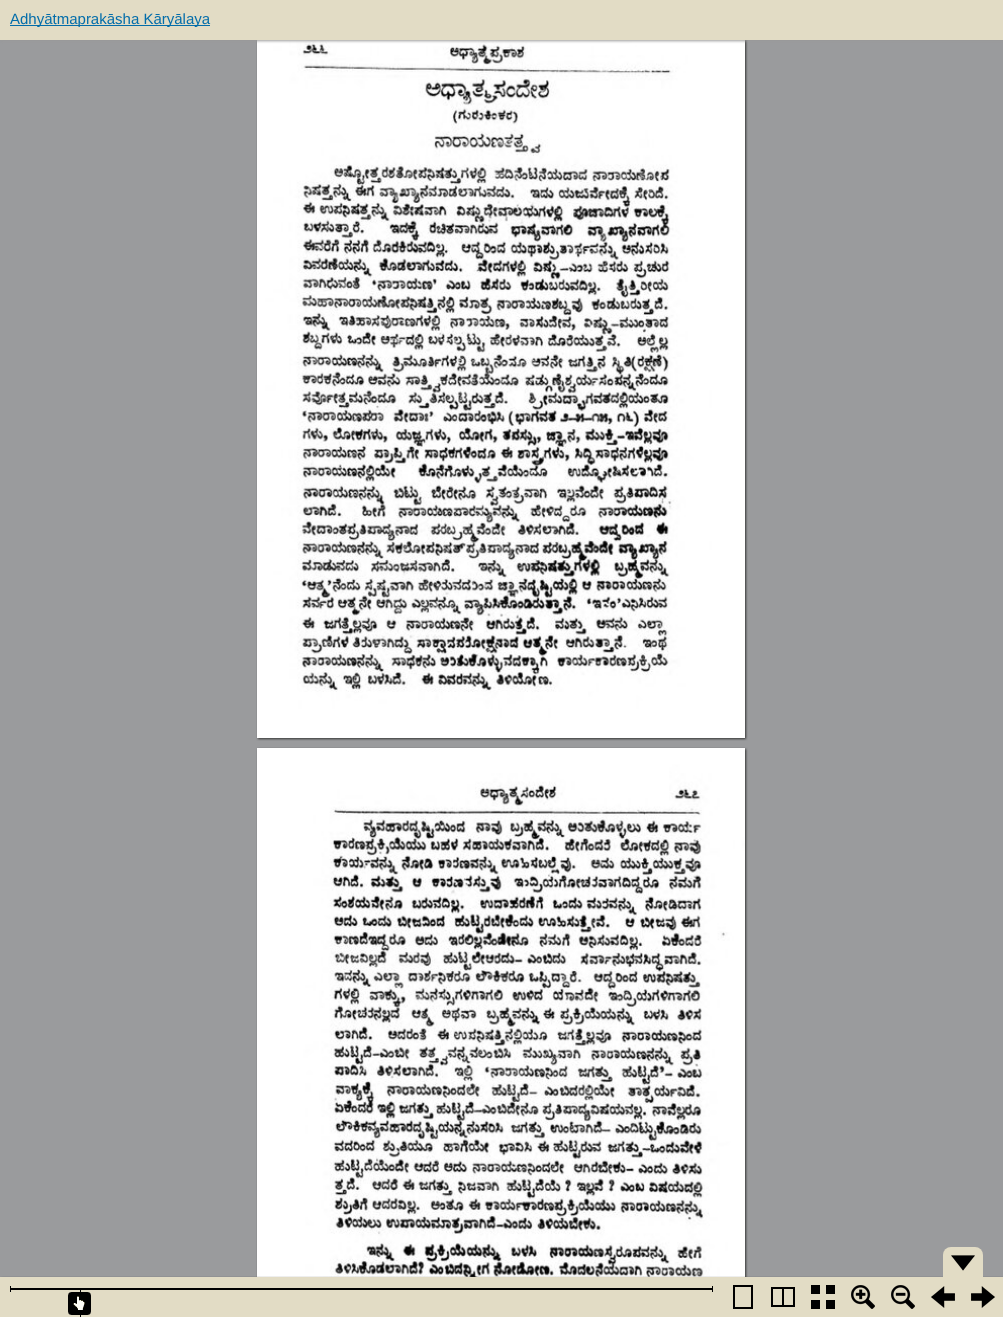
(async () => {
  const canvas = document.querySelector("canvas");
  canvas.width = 1003;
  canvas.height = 1317;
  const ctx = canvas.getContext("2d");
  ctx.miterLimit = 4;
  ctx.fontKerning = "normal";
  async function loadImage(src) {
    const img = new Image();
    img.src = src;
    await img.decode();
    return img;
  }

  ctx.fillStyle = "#9a9b9d";
  ctx.fillRect(0, 0, 1003, 1317);
  ctx.fillStyle = "#333333";
  ctx.filter = "blur(1px)";
  ctx.beginPath();
  ctx.rect(258, 6, 488, 733);
  ctx.fill();
  ctx.filter = "none";
  ctx.drawImage(await loadImage("img/1.png"), 257, 40, 488, 698);
  ctx.fillStyle = "#999999";
  ctx.filter = "blur(1.5px)";
  ctx.beginPath();
  ctx.rect(0, 1, 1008, 40);
  ctx.fill();
  ctx.filter = "none";
  ctx.fillStyle = "#e2dcc5";
  ctx.fillRect(0, 0, 1003, 40);
  ctx.fillStyle = "#036daa";
  ctx.fillRect(10, 25, 200, 1);
  ctx.fillStyle = "#333333";
  ctx.filter = "blur(1px)";
  ctx.beginPath();
  ctx.rect(258, 749, 488, 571);
  ctx.fill();
  ctx.filter = "none";
  ctx.drawImage(await loadImage("img/2.png"), 257, 748, 488, 529);
  ctx.filter = "blur(1px)";
  ctx.beginPath();
  ctx.rect(1, 1278, 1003, 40);
  ctx.fill();
  ctx.filter = "none";
  ctx.fillStyle = "#e2dcc5";
  ctx.fillRect(0, 1277, 1003, 40);
  ctx.beginPath();
  ctx.roundRect(943, 1247, 40, 30, [8, 8, 0, 0]);
  ctx.fill();
  ctx.drawImage(await loadImage("img/3.png"), 951, 1255, 24, 16);
  for (const [x, y, w, h, color] of [
    [10, 1288, 703, 2, "#000000"],
    [10, 1286, 1, 6, "#000000"],
    [712, 1286, 1, 6, "#000000"],
  ]) {
    ctx.fillStyle = color;
    ctx.fillRect(x, y, w, h);
  }
  ctx.drawImage(await loadImage("img/4.png"), 68, 1290, 23, 27);
  ctx.drawImage(await loadImage("img/5.png"), 733, 1285, 20, 24);
  ctx.drawImage(await loadImage("img/6.png"), 771, 1287, 24, 20);
  ctx.drawImage(await loadImage("img/7.png"), 811, 1285, 24, 24);
  ctx.drawImage(await loadImage("img/8.png"), 851, 1285, 24, 24);
  ctx.drawImage(await loadImage("img/9.png"), 891, 1285, 24, 24);
  ctx.drawImage(await loadImage("img/10.png"), 931, 1286, 24, 22);
  ctx.drawImage(await loadImage("img/11.png"), 971, 1286, 24, 22);
  ctx.font = "15px Liberation Sans";
  ctx.fillStyle = "#036daa";
  ctx.fillText("Adhyātmaprakāsha Kāryālaya", 10, 24);
})();
